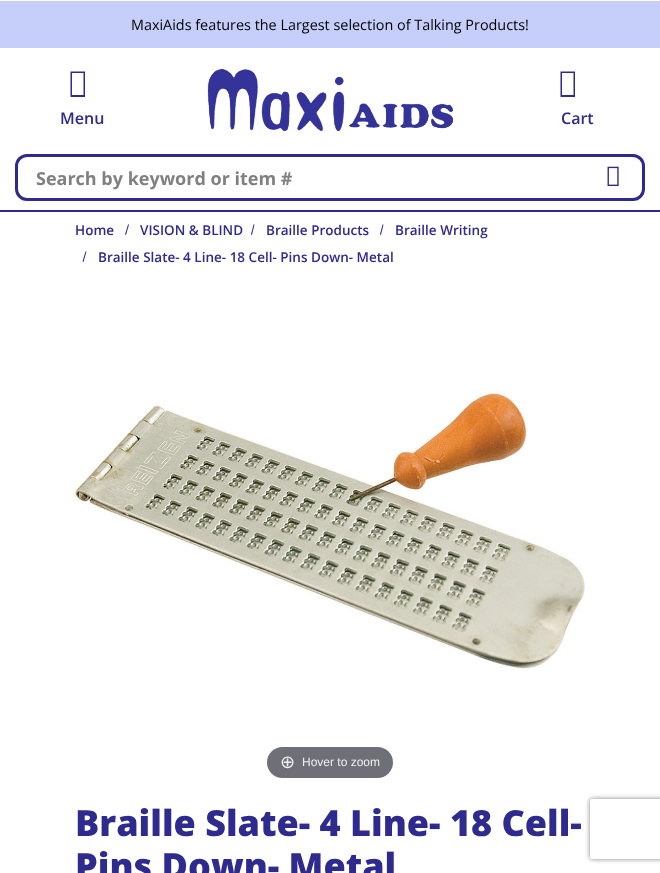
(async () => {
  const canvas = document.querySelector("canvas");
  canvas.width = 660;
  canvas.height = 873;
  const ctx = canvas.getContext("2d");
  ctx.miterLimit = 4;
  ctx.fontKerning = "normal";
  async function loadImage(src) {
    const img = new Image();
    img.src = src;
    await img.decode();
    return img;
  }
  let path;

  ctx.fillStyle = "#ffffff";
  ctx.fillRect(0, 0, 660, 873);
  ctx.fillStyle = "#c5cffa";
  ctx.fillRect(0, 1, 660, 47);
  ctx.fillStyle = "#2f2a8e";
  ctx.fillRect(0, 210, 660, 2);
  path = new Path2D("M70.5 97V71.5H85V97ZM72 95H83.5V73H72Z");
  ctx.fill(path);
  ctx.drawImage(await loadImage("img/1.png"), 207, 69, 246, 62);
  path = new Path2D("M560.5 97V71.5H575V97ZM562 95H573.5V73H562Z");
  ctx.fill(path);
  ctx.beginPath();
  ctx.roundRect(16.5, 155.5, 627, 44, 10.5);
  ctx.strokeStyle = "#2f2a8e";
  ctx.lineWidth = 3;
  ctx.stroke();
  ctx.drawImage(await loadImage("img/2.png"), 607, 166, 12, 20);
  path = new Path2D("M128 224.5H129L126 235L125 234.5Z");
  ctx.fill(path);
  path = new Path2D("M253.5 224.5H254.5L252 235L251 234.5Z");
  ctx.fill(path);
  path = new Path2D("M382.5 224.5H383.5L381 235L380 234.5Z");
  ctx.fill(path);
  path = new Path2D("M85.5 251.5H86.5L83.5 262L82.5 261.5Z");
  ctx.fill(path);
  ctx.drawImage(await loadImage("img/3.png"), 75, 390, 510, 282);
  ctx.fillStyle = "#6f7077";
  ctx.beginPath();
  ctx.roundRect(267, 747, 126, 31, 15.5);
  ctx.fill();
  ctx.save();
  path = new Path2D("M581 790H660V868H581ZM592 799H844C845 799 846 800 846 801V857C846 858 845 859 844 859H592C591 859 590 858 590 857V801C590 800 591 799 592 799Z");
  ctx.clip(path, "evenodd");
  ctx.fillStyle = "#808080";
  ctx.filter = "blur(2.5px)";
  ctx.beginPath();
  ctx.roundRect(590, 799, 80, 60, 2);
  ctx.fill();
  ctx.filter = "none";
  ctx.restore();
  ctx.font = "14.4px Open Sans";
  ctx.fillStyle = "#000000";
  ctx.fillText("MaxiAids features the Largest selection of Talking Products!", 131, 30);
  ctx.font = "600 16px Open Sans";
  ctx.fillStyle = "#2f2a8e";
  ctx.fillText("Menu", 60, 124);
  ctx.fillText("Cart", 561, 124);
  ctx.font = "bold 18px Open Sans";
  ctx.fillStyle = "#808080";
  ctx.fillText("Search by keyword or item #", 36, 185);
  ctx.font = "600 13.5px Open Sans";
  ctx.fillStyle = "#2f2a8e";
  for (const [text, x, y] of [
    ["Home", 75, 235],
    ["VISION & BLIND", 140, 235],
    ["Braille Products", 266, 235],
    ["Braille Writing", 395, 235],
    ["Braille Slate- 4 Line- 18 Cell- Pins Down- Metal", 98, 262],
  ]) {
    ctx.fillText(text, x, y);
  }
  ctx.font = "18px DejaVu Sans";
  ctx.fillStyle = "#eeeeee";
  ctx.fillText("⊕", 280, 768);
  ctx.font = "12px Liberation Sans";
  ctx.fillText("Hover to zoom", 302, 766);
  ctx.font = "800 36px Open Sans";
  ctx.fillStyle = "#2f2a8e";
  ctx.fillText("Braille Slate- 4 Line- 18 Cell-", 75, 836);
  ctx.fillText("Pins Down- Metal", 75, 879);
})();
